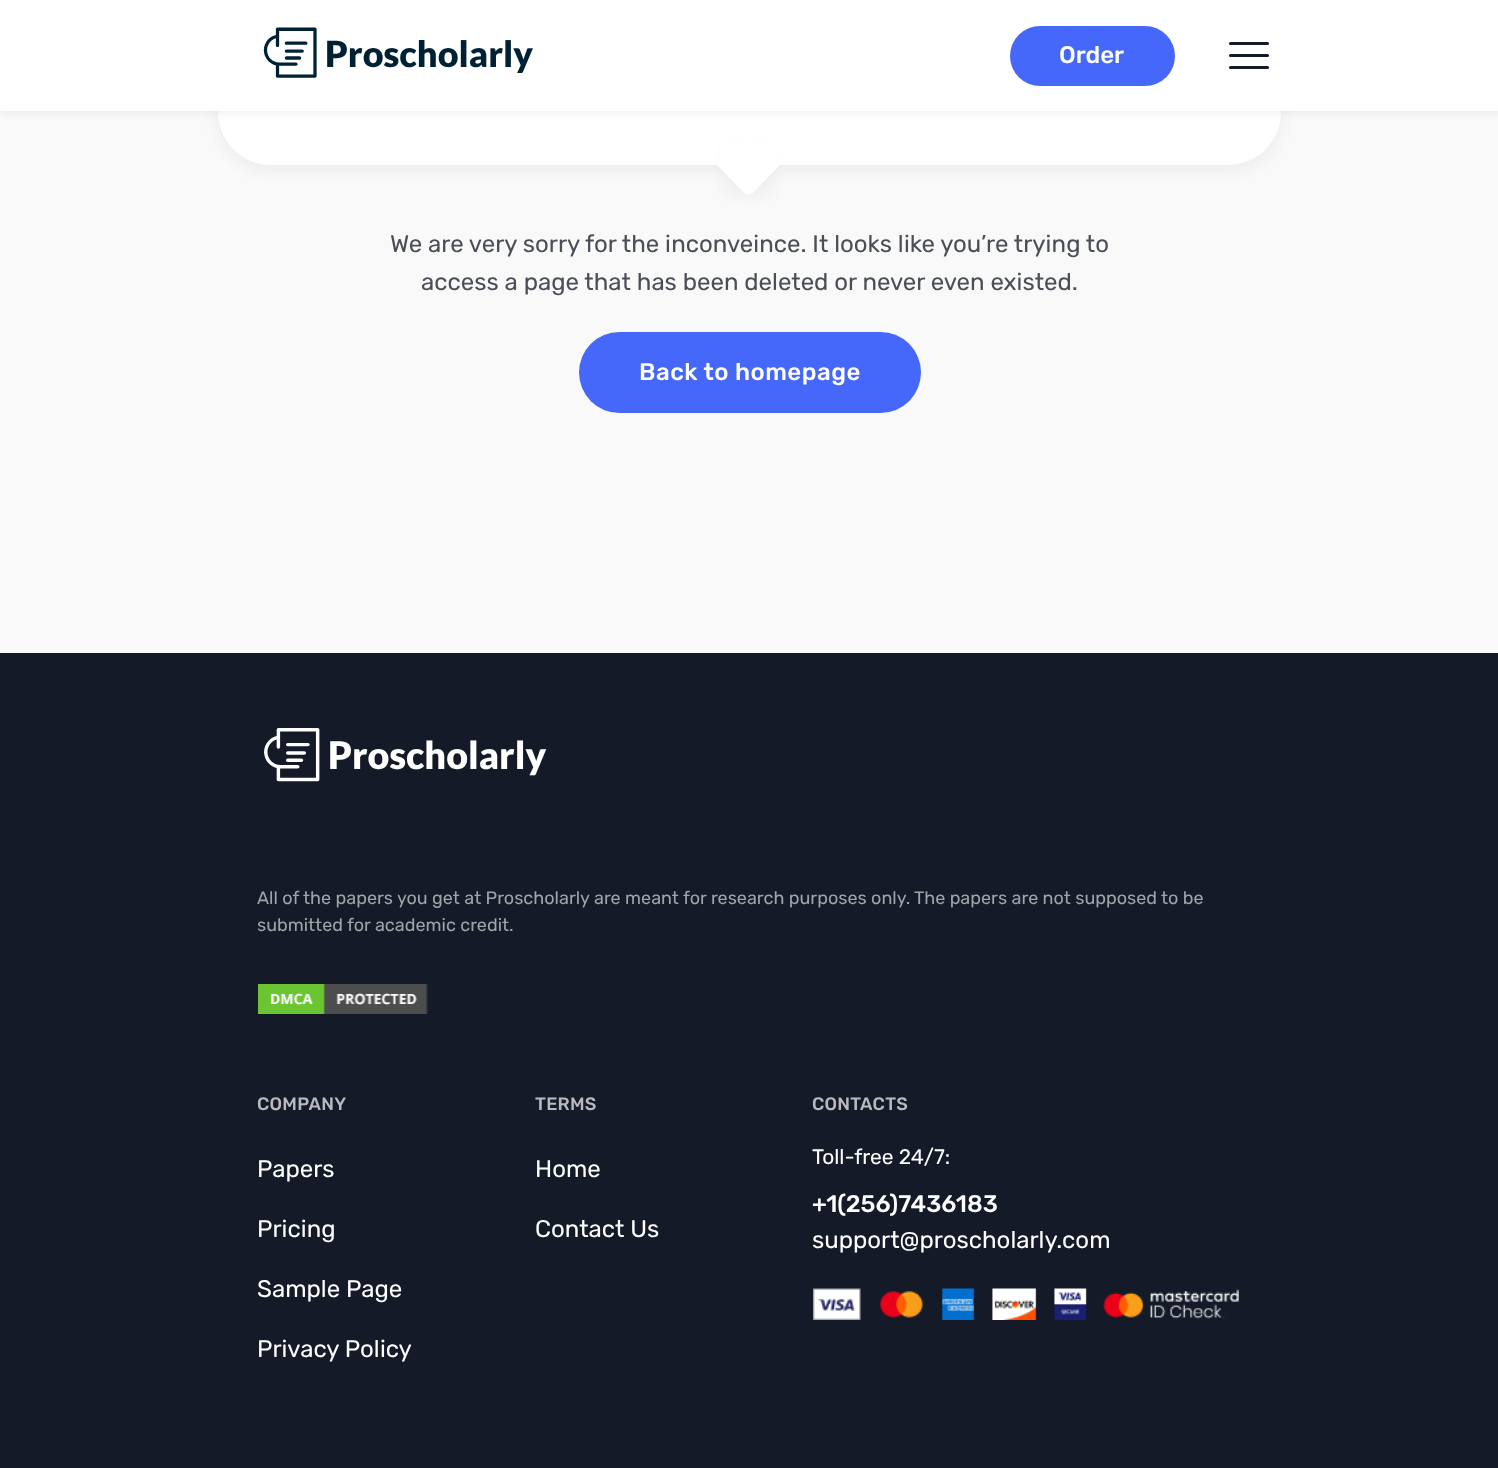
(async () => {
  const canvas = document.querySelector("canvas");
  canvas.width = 1498;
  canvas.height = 1468;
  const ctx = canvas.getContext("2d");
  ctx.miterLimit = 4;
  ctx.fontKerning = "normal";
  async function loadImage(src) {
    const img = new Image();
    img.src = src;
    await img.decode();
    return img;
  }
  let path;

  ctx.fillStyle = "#f9f9f9";
  ctx.fillRect(0, 0, 1498, 1468);
  ctx.fillStyle = "rgba(0, 0, 0, 0.05)";
  ctx.filter = "blur(7.5px)";
  ctx.beginPath();
  ctx.roundRect(218, -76, 1063, 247, 53);
  ctx.fill();
  ctx.filter = "none";
  ctx.fillStyle = "#ffffff";
  ctx.beginPath();
  ctx.roundRect(218, -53, 1063, 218, 53);
  ctx.fill();
  ctx.fillStyle = "rgba(0, 0, 0, 0.05)";
  ctx.filter = "blur(3px)";
  ctx.beginPath();
  ctx.rect(0, 3, 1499, 111);
  ctx.fill();
  ctx.filter = "none";
  ctx.fillStyle = "#ffffff";
  ctx.fillRect(0, 0, 1498, 111);
  ctx.drawImage(await loadImage("img/1.png"), 263, 27, 270, 51);
  ctx.fillStyle = "#4568fb";
  ctx.beginPath();
  ctx.roundRect(1010, 26, 165, 60, 30);
  ctx.fill();
  ctx.fillStyle = "#141a27";
  ctx.beginPath();
  ctx.roundRect(1229, 42, 40, 3, 1.5);
  ctx.fill();
  ctx.beginPath();
  ctx.roundRect(1229, 54, 40, 3, 1.5);
  ctx.fill();
  ctx.beginPath();
  ctx.roundRect(1229, 66, 40, 3, 1.5);
  ctx.fill();
  ctx.fillStyle = "rgba(0, 0, 0, 0.05)";
  ctx.filter = "blur(7.5px)";
  ctx.beginPath();
  ctx.roundRect(726, 149, 45, 45, 6);
  ctx.fill();
  ctx.filter = "none";
  ctx.fillStyle = "#ffffff";
  path = new Path2D("M748 133L780 165L753 193C750 195 747 195 744 193L717 165Z");
  ctx.fill(path);
  ctx.fillRect(720, 143, 57, 18);
  ctx.fillStyle = "#4568fb";
  ctx.beginPath();
  ctx.roundRect(579, 332, 342, 81, 40.5);
  ctx.fill();
  ctx.fillStyle = "#141a27";
  ctx.fillRect(0, 653, 1498, 815);
  ctx.drawImage(await loadImage("img/2.png"), 264, 728, 283, 54);
  ctx.drawImage(await loadImage("img/3.png"), 258, 984, 170, 30);
  ctx.drawImage(await loadImage("img/4.png"), 813, 1288, 426, 32);
  ctx.font = "500 24px Rubik";
  ctx.fillStyle = "#ffffff";
  ctx.fillText("Order", 1059, 63);
  ctx.font = "24px Rubik";
  ctx.fillStyle = "#4a4e57";
  ctx.fillText("We are very sorry for the inconveince. It looks like you’re trying to", 390, 252);
  ctx.fillText("access a page that has been deleted or never even existed.", 421, 290);
  ctx.letterSpacing = "0.5px";
  ctx.font = "500 24px Rubik";
  ctx.fillStyle = "#ffffff";
  ctx.fillText("Back to homepage", 639, 380);
  ctx.letterSpacing = "0px";
  ctx.font = "18px Rubik";
  ctx.fillStyle = "#a1a3a9";
  ctx.fillText("All of the papers you get at Proscholarly are meant for research purposes only. The papers are not supposed to be", 257, 904);
  ctx.fillText("submitted for academic credit.", 257, 931);
  ctx.letterSpacing = "0.25px";
  ctx.font = "500 18px Rubik";
  ctx.fillStyle = "#b9babe";
  ctx.fillText("COMPANY", 257, 1110);
  ctx.letterSpacing = "0px";
  ctx.font = "24px Rubik";
  ctx.fillStyle = "#ffffff";
  for (const [text, x, y] of [
    ["Papers", 257, 1177],
    ["Pricing", 257, 1237],
    ["Sample Page", 257, 1297],
    ["Privacy Policy", 257, 1357],
  ]) {
    ctx.fillText(text, x, y);
  }
  ctx.letterSpacing = "0.25px";
  ctx.font = "500 18px Rubik";
  ctx.fillStyle = "#b9babe";
  ctx.fillText("TERMS", 535, 1110);
  ctx.letterSpacing = "0px";
  ctx.font = "24px Rubik";
  ctx.fillStyle = "#ffffff";
  ctx.fillText("Home", 535, 1177);
  ctx.fillText("Contact Us", 535, 1237);
  ctx.letterSpacing = "0.25px";
  ctx.font = "500 18px Rubik";
  ctx.fillStyle = "#b9babe";
  ctx.fillText("CONTACTS", 812, 1110);
  ctx.letterSpacing = "0px";
  ctx.font = "21px Rubik";
  ctx.fillStyle = "#ffffff";
  ctx.fillText("Toll-free 24/7:", 812, 1164);
  ctx.font = "500 24px Rubik";
  ctx.fillText("+1(256)7436183", 812, 1212);
  ctx.font = "24px Rubik";
  ctx.fillText("support@proscholarly.com", 812, 1248);
})();
